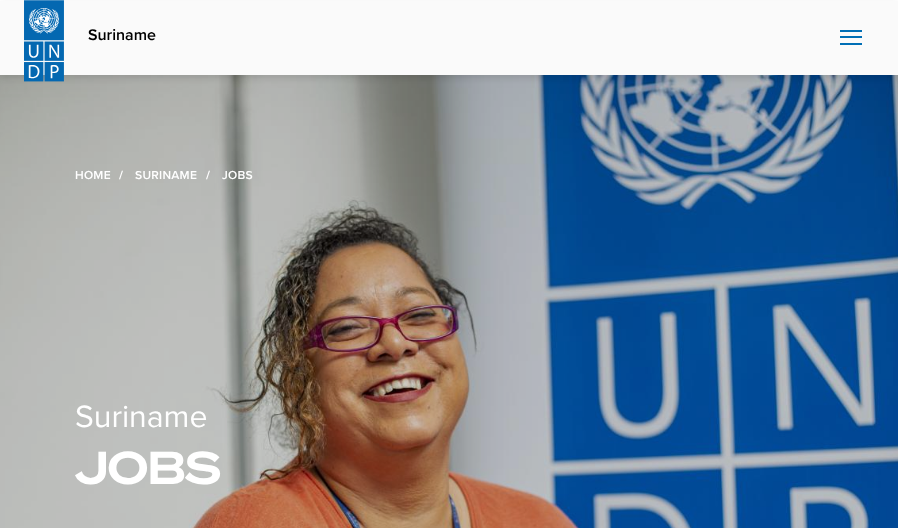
(async () => {
  const canvas = document.querySelector("canvas");
  canvas.width = 898;
  canvas.height = 528;
  const ctx = canvas.getContext("2d");
  ctx.miterLimit = 4;
  ctx.fontKerning = "normal";
  async function loadImage(src) {
    const img = new Image();
    img.src = src;
    await img.decode();
    return img;
  }

  ctx.fillStyle = "#ffffff";
  ctx.fillRect(0, 0, 898, 528);
  ctx.drawImage(await loadImage("img/2.png"), 0, 75, 898, 453);
  ctx.fillStyle = "rgba(0, 0, 0, 0.1)";
  ctx.filter = "blur(3px)";
  ctx.beginPath();
  ctx.rect(0, 3, 898, 75);
  ctx.fill();
  ctx.filter = "none";
  ctx.fillStyle = "#fafafa";
  ctx.fillRect(0, 1, 898, 74);
  ctx.drawImage(await loadImage("img/1.png"), 24, 0, 40, 82);
  for (const [x, y, w, h, color] of [
    [840, 30, 22, 2, "#006eb5"],
    [840, 36, 22, 2, "#006eb5"],
    [840, 43, 22, 2, "#006eb5"],
  ]) {
    ctx.fillStyle = color;
    ctx.fillRect(x, y, w, h);
  }
  ctx.font = "600 16px Proxima Nova";
  ctx.fillStyle = "#000000";
  ctx.fillText("Suriname", 88, 40);
  ctx.letterSpacing = "0.25px";
  ctx.font = "600 12px Proxima Nova";
  ctx.fillStyle = "#ffffff";
  ctx.fillText("HOME", 75, 179);
  ctx.letterSpacing = "0px";
  ctx.font = "bold 12px Proxima Nova";
  ctx.fillText("/", 119, 179);
  ctx.letterSpacing = "0.25px";
  ctx.font = "600 12px Proxima Nova";
  ctx.fillText("SURINAME", 135, 179);
  ctx.letterSpacing = "0px";
  ctx.font = "bold 12px Proxima Nova";
  ctx.fillText("/", 206, 179);
  ctx.letterSpacing = "0.25px";
  ctx.font = "600 12px Proxima Nova";
  ctx.fillText("JOBS", 222, 179);
  ctx.letterSpacing = "0px";
  ctx.font = "32px Proxima Nova";
  ctx.fillText("Suriname", 75, 427);
  ctx.font = "bold 45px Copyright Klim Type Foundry";
  ctx.fillText("JOBS", 75, 484);
})();
